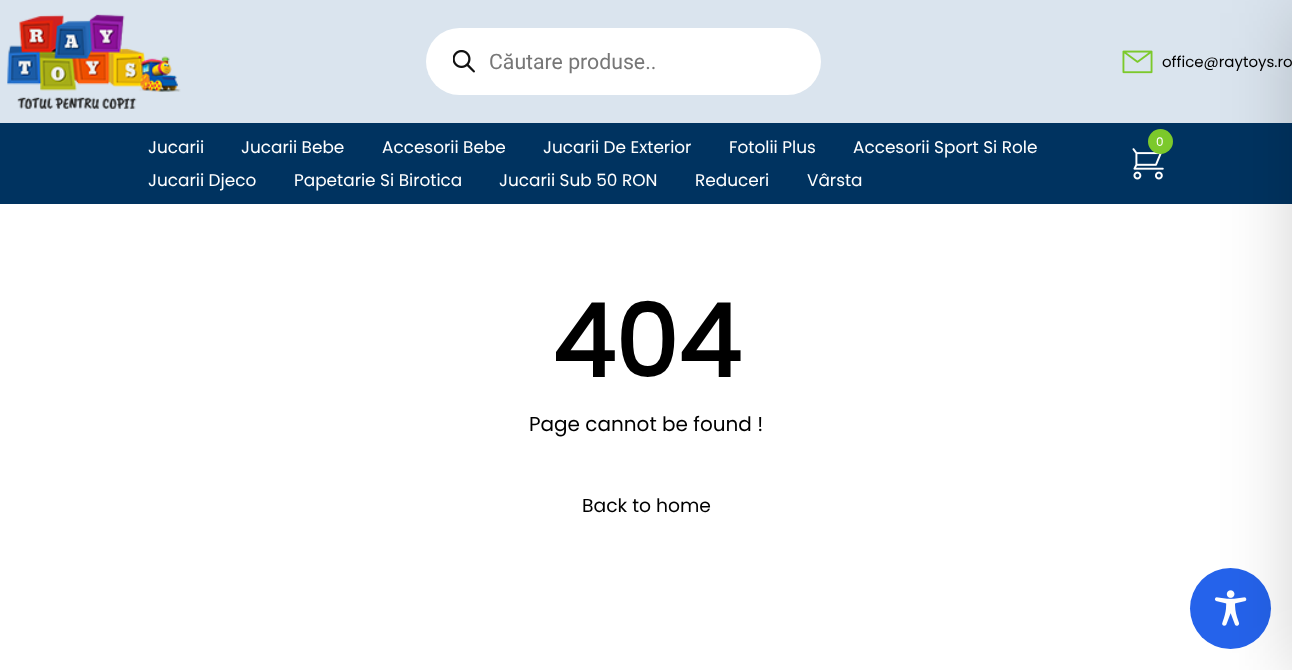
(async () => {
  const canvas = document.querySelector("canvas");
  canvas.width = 1292;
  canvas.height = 670;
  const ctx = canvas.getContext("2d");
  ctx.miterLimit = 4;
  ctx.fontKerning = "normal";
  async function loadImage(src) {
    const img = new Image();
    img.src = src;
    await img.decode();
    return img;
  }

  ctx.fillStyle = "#ffffff";
  ctx.fillRect(0, 0, 1292, 670);
  ctx.fillStyle = "#dae4ee";
  ctx.fillRect(0, 0, 1292, 123);
  ctx.fillStyle = "#003360";
  ctx.fillRect(0, 123, 1292, 81);
  ctx.fillStyle = "#2563eb";
  ctx.beginPath();
  ctx.arc(1230.5, 608.5, 40.5, 0, Math.PI * 2);
  ctx.fill();
  ctx.drawImage(await loadImage("img/5.png"), 1214, 590, 33, 36);
  ctx.fillStyle = "rgba(0, 0, 0, 0.2)";
  ctx.filter = "blur(37.5px)";
  ctx.beginPath();
  ctx.rect(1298, 13, 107, 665);
  ctx.fill();
  ctx.filter = "none";
  ctx.drawImage(await loadImage("img/1.png"), 7, 14, 174, 95);
  ctx.fillStyle = "#ffffff";
  ctx.beginPath();
  ctx.roundRect(426, 28, 395, 67, 33.5);
  ctx.fill();
  ctx.drawImage(await loadImage("img/2.png"), 453, 50, 22, 23);
  ctx.drawImage(await loadImage("img/3.png"), 1122, 50, 31, 24);
  ctx.drawImage(await loadImage("img/4.png"), 1132, 148, 32, 32);
  ctx.fillStyle = "#7cc92b";
  ctx.beginPath();
  ctx.arc(1160.5, 141.5, 12.5, 0, Math.PI * 2);
  ctx.fill();
  ctx.font = "21.25px Roboto";
  ctx.fillStyle = "#777777";
  ctx.fillText("Căutare produse..", 489, 69);
  ctx.font = "15px Poppins";
  ctx.fillStyle = "#000000";
  ctx.fillText("office@raytoys.ro", 1162, 67);
  ctx.font = "16.9px Poppins";
  ctx.fillStyle = "#ffffff";
  for (const [text, x, y] of [
    ["Jucarii", 148, 153],
    ["Jucarii Bebe", 241, 153],
    ["Accesorii Bebe", 382, 153],
    ["Jucarii De Exterior", 543, 153],
    ["Fotolii Plus", 729, 153],
    ["Accesorii Sport Si Role", 853, 153],
    ["Jucarii Djeco", 148, 186],
    ["Papetarie Si Birotica", 294, 186],
    ["Jucarii Sub 50 RON", 499, 186],
    ["Reduceri", 695, 186],
    ["Vârsta", 807, 186],
  ]) {
    ctx.fillText(text, x, y);
  }
  ctx.font = "12px Poppins";
  ctx.fillText("0", 1156, 146);
  ctx.font = "bold 100px Poppins";
  ctx.fillStyle = "#000000";
  ctx.fillText("404", 552, 377);
  ctx.font = "20px Poppins";
  ctx.fillText("Page cannot be found !", 529, 431);
  ctx.font = "18.75px Poppins";
  ctx.fillText("Back to home", 582, 512);
})();
